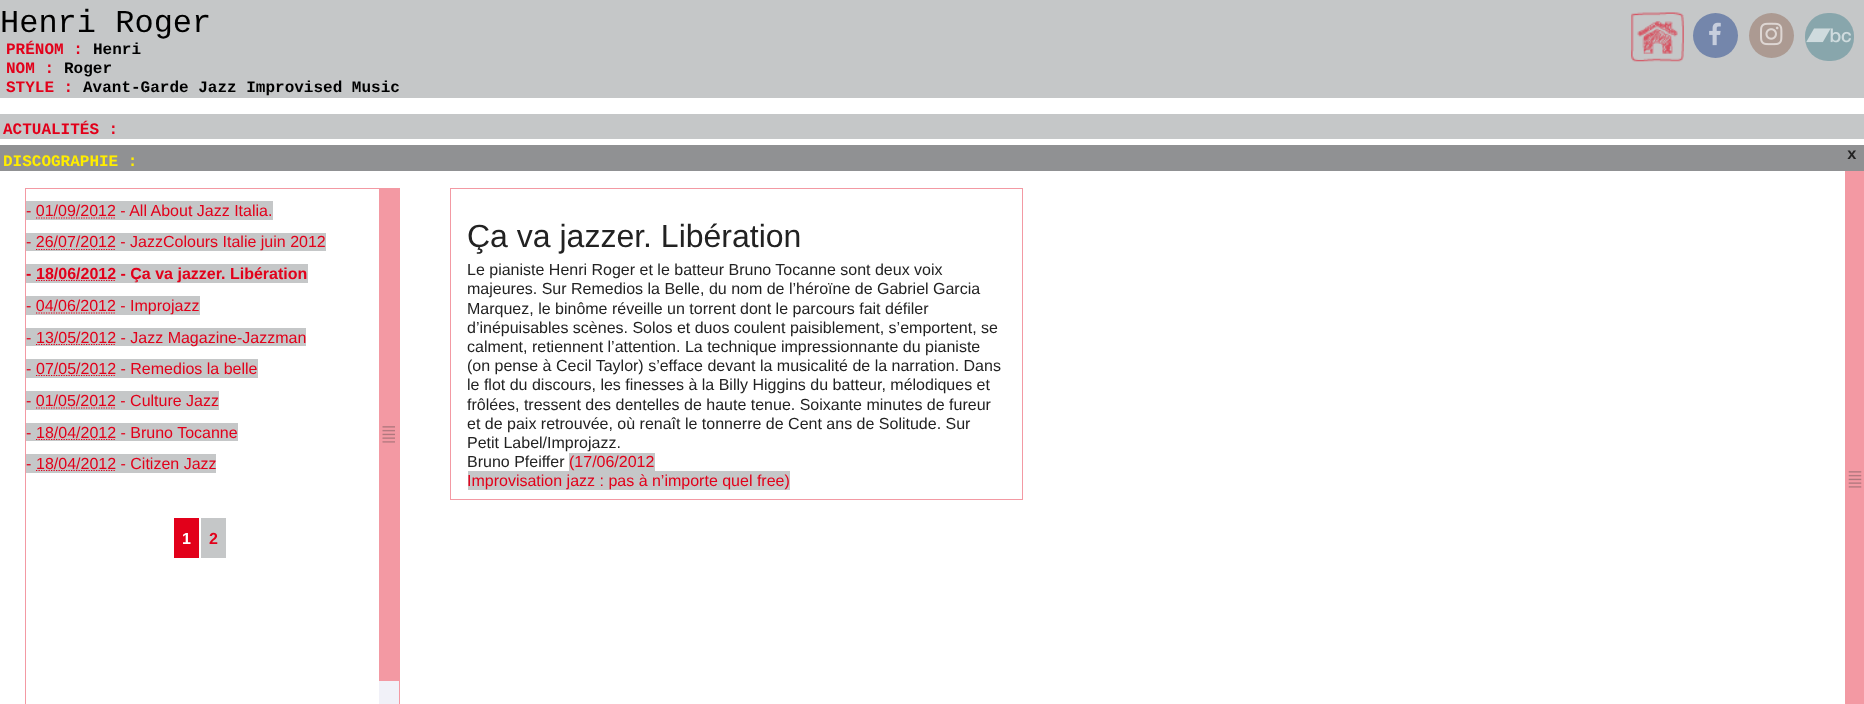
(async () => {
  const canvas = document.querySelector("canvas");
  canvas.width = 1864;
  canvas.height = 704;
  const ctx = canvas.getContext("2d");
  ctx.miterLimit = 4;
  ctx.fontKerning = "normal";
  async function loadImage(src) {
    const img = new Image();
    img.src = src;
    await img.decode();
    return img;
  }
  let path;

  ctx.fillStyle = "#ffffff";
  ctx.fillRect(0, 0, 1864, 704);
  ctx.fillStyle = "#c5c7c8";
  ctx.fillRect(0, 0, 1864, 98);
  ctx.drawImage(await loadImage("img/1.png"), 1631, 12, 53, 50);
  ctx.fillStyle = "#7486ab";
  ctx.beginPath();
  ctx.arc(1715.5, 35.5, 22.5, 0, Math.PI * 2);
  ctx.fill();
  ctx.drawImage(await loadImage("img/2.png"), 1709, 22, 12, 24);
  ctx.fillStyle = "#ac9a92";
  ctx.beginPath();
  ctx.arc(1771.5, 35.5, 22.5, 0, Math.PI * 2);
  ctx.fill();
  ctx.drawImage(await loadImage("img/3.png"), 1760, 22, 23, 24);
  ctx.fillStyle = "#88a6ac";
  ctx.beginPath();
  ctx.roundRect(1805, 13, 49, 48, 23);
  ctx.fill();
  ctx.drawImage(await loadImage("img/4.png"), 1806, 28, 45, 15);
  ctx.fillStyle = "#c5c7c8";
  ctx.fillRect(0, 114, 1864, 25);
  ctx.fillStyle = "#909193";
  ctx.fillRect(0, 145, 1864, 26);
  ctx.strokeStyle = "#f399a3";
  ctx.strokeRect(25.5, 188.5, 374, 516);
  ctx.fillStyle = "#c5c7c8";
  ctx.fillRect(26, 201, 247, 19);
  path = new Path2D("M36 218H116");
  ctx.strokeStyle = "#e2001a";
  ctx.lineWidth = 1.2;
  ctx.setLineDash([1.25, 1.25]);
  ctx.stroke(path);
  ctx.fillRect(26, 233, 300, 18);
  path = new Path2D("M36 249.5H116");
  ctx.stroke(path);
  ctx.fillRect(26, 264, 282, 19);
  path = new Path2D("M36 280.5H116");
  ctx.stroke(path);
  ctx.fillRect(26, 296, 174, 19);
  path = new Path2D("M36 313H116");
  ctx.stroke(path);
  ctx.fillRect(26, 328, 280, 18);
  path = new Path2D("M36 344.5H116");
  ctx.stroke(path);
  ctx.fillRect(26, 359, 232, 19);
  path = new Path2D("M36 375.5H116");
  ctx.stroke(path);
  ctx.fillRect(26, 391, 193, 19);
  path = new Path2D("M36 408H116");
  ctx.stroke(path);
  ctx.fillRect(26, 423, 212, 18);
  path = new Path2D("M36 439.5H116");
  ctx.stroke(path);
  ctx.fillRect(26, 454, 190, 19);
  path = new Path2D("M36 470.5H116");
  ctx.stroke(path);
  for (const [x, y, w, h, color] of [
    [174, 518, 25, 40, "#e2001a"],
    [201, 518, 25, 40, "#c5c7c8"],
    [379, 681, 20, 23, "#f1f1f8"],
    [379, 189, 20, 492, "#f399a3"],
  ]) {
    ctx.fillStyle = color;
    ctx.fillRect(x, y, w, h);
  }
  ctx.drawImage(await loadImage("img/5.png"), 382, 426, 13, 17);
  ctx.strokeStyle = "#f399a3";
  ctx.lineWidth = 1;
  ctx.setLineDash([]);
  ctx.strokeRect(450.5, 188.5, 572, 311);
  for (const [x, y, w, h, color] of [
    [569, 453, 86, 18, "#c5c7c8"],
    [468, 471, 322, 19, "#c5c7c8"],
    [1845, 171, 19, 533, "#f399a3"],
  ]) {
    ctx.fillStyle = color;
    ctx.fillRect(x, y, w, h);
  }
  ctx.drawImage(await loadImage("img/6.png"), 1848, 471, 14, 17);
  ctx.font = "32px Liberation Mono";
  ctx.fillStyle = "#000000";
  ctx.fillText("Henri Roger", 0, 32);
  ctx.font = "bold 16px Liberation Mono";
  ctx.fillStyle = "#e2001a";
  ctx.fillText("PRÉNOM :", 6, 54);
  ctx.fillStyle = "#000000";
  ctx.fillText("Henri", 93, 54);
  ctx.fillStyle = "#e2001a";
  ctx.fillText("NOM :", 6, 73);
  ctx.fillStyle = "#000000";
  ctx.fillText("Roger", 64, 73);
  ctx.fillStyle = "#e2001a";
  ctx.fillText("STYLE :", 6, 92);
  ctx.fillStyle = "#000000";
  ctx.fillText("Avant-Garde Jazz Improvised Music", 83, 92);
  ctx.fillStyle = "#e2001a";
  ctx.fillText("ACTUALITÉS :", 3, 134);
  ctx.fillStyle = "#ffed00";
  ctx.fillText("DISCOGRAPHIE :", 3, 166);
  ctx.fillStyle = "#222222";
  ctx.fillText("x", 1847, 159);
  ctx.font = "16px Liberation Sans";
  ctx.fillStyle = "#e2001a";
  ctx.fillText("- 01/09/2012 - All About Jazz Italia.", 26, 216);
  ctx.fillText("- 26/07/2012 - JazzColours Italie juin 2012", 26, 247);
  ctx.font = "bold 16px Liberation Sans";
  ctx.fillText("-", 26, 279);
  ctx.fillText("18/06/2012 - Ça va jazzer. Libération", 36, 279);
  ctx.font = "16px Liberation Sans";
  for (const [text, x, y] of [
    ["- 04/06/2012 - Improjazz", 26, 311],
    ["-", 26, 343],
    ["13/05/2012 - Jazz Magazine-Jazzman", 36, 343],
    ["-", 26, 374],
    ["07/05/2012 - Remedios la belle", 36, 374],
    ["- 01/05/2012 - Culture Jazz", 26, 406],
    ["-", 26, 438],
    ["18/04/2012 - Bruno Tocanne", 36, 438],
    ["-", 26, 469],
    ["18/04/2012 - Citizen Jazz", 36, 469],
  ]) {
    ctx.fillText(text, x, y);
  }
  ctx.font = "bold 16px Liberation Sans";
  ctx.fillStyle = "#ffffff";
  ctx.fillText("1", 182, 544);
  ctx.fillStyle = "#e2001a";
  ctx.fillText("2", 209, 544);
  ctx.font = "32px Liberation Sans";
  ctx.fillStyle = "#222222";
  ctx.fillText("Ça va jazzer. Libération", 467, 247);
  ctx.font = "16px Liberation Sans";
  for (const [text, x, y] of [
    ["Le pianiste Henri Roger et le batteur Bruno Tocanne sont deux voix", 467, 275],
    ["majeures. Sur Remedios la Belle, du nom de l’héroïne de Gabriel Garcia", 467, 294],
    ["Marquez, le binôme réveille un torrent dont le parcours fait défiler", 467, 314],
    ["d’inépuisables scènes. Solos et duos coulent paisiblement, s’emportent, se", 467, 333],
    ["calment, retiennent l’attention. La technique impressionnante du pianiste", 467, 352],
    ["(on pense à Cecil Taylor) s’efface devant la musicalité de la narration. Dans", 467, 371],
    ["le flot du discours, les finesses à la Billy Higgins du batteur, mélodiques et", 467, 390],
    ["frôlées, tressent des dentelles de haute tenue. Soixante minutes de fureur", 467, 410],
    ["et de paix retrouvée, où renaît le tonnerre de Cent ans de Solitude. Sur", 467, 429],
    ["Petit Label/Improjazz.", 467, 448],
    ["Bruno Pfeiffer", 467, 467],
  ]) {
    ctx.fillText(text, x, y);
  }
  ctx.fillStyle = "#e2001a";
  ctx.fillText("(17/06/2012", 569, 467);
  ctx.fillText("Improvisation jazz : pas à n’importe quel free)", 467, 486);
})();
